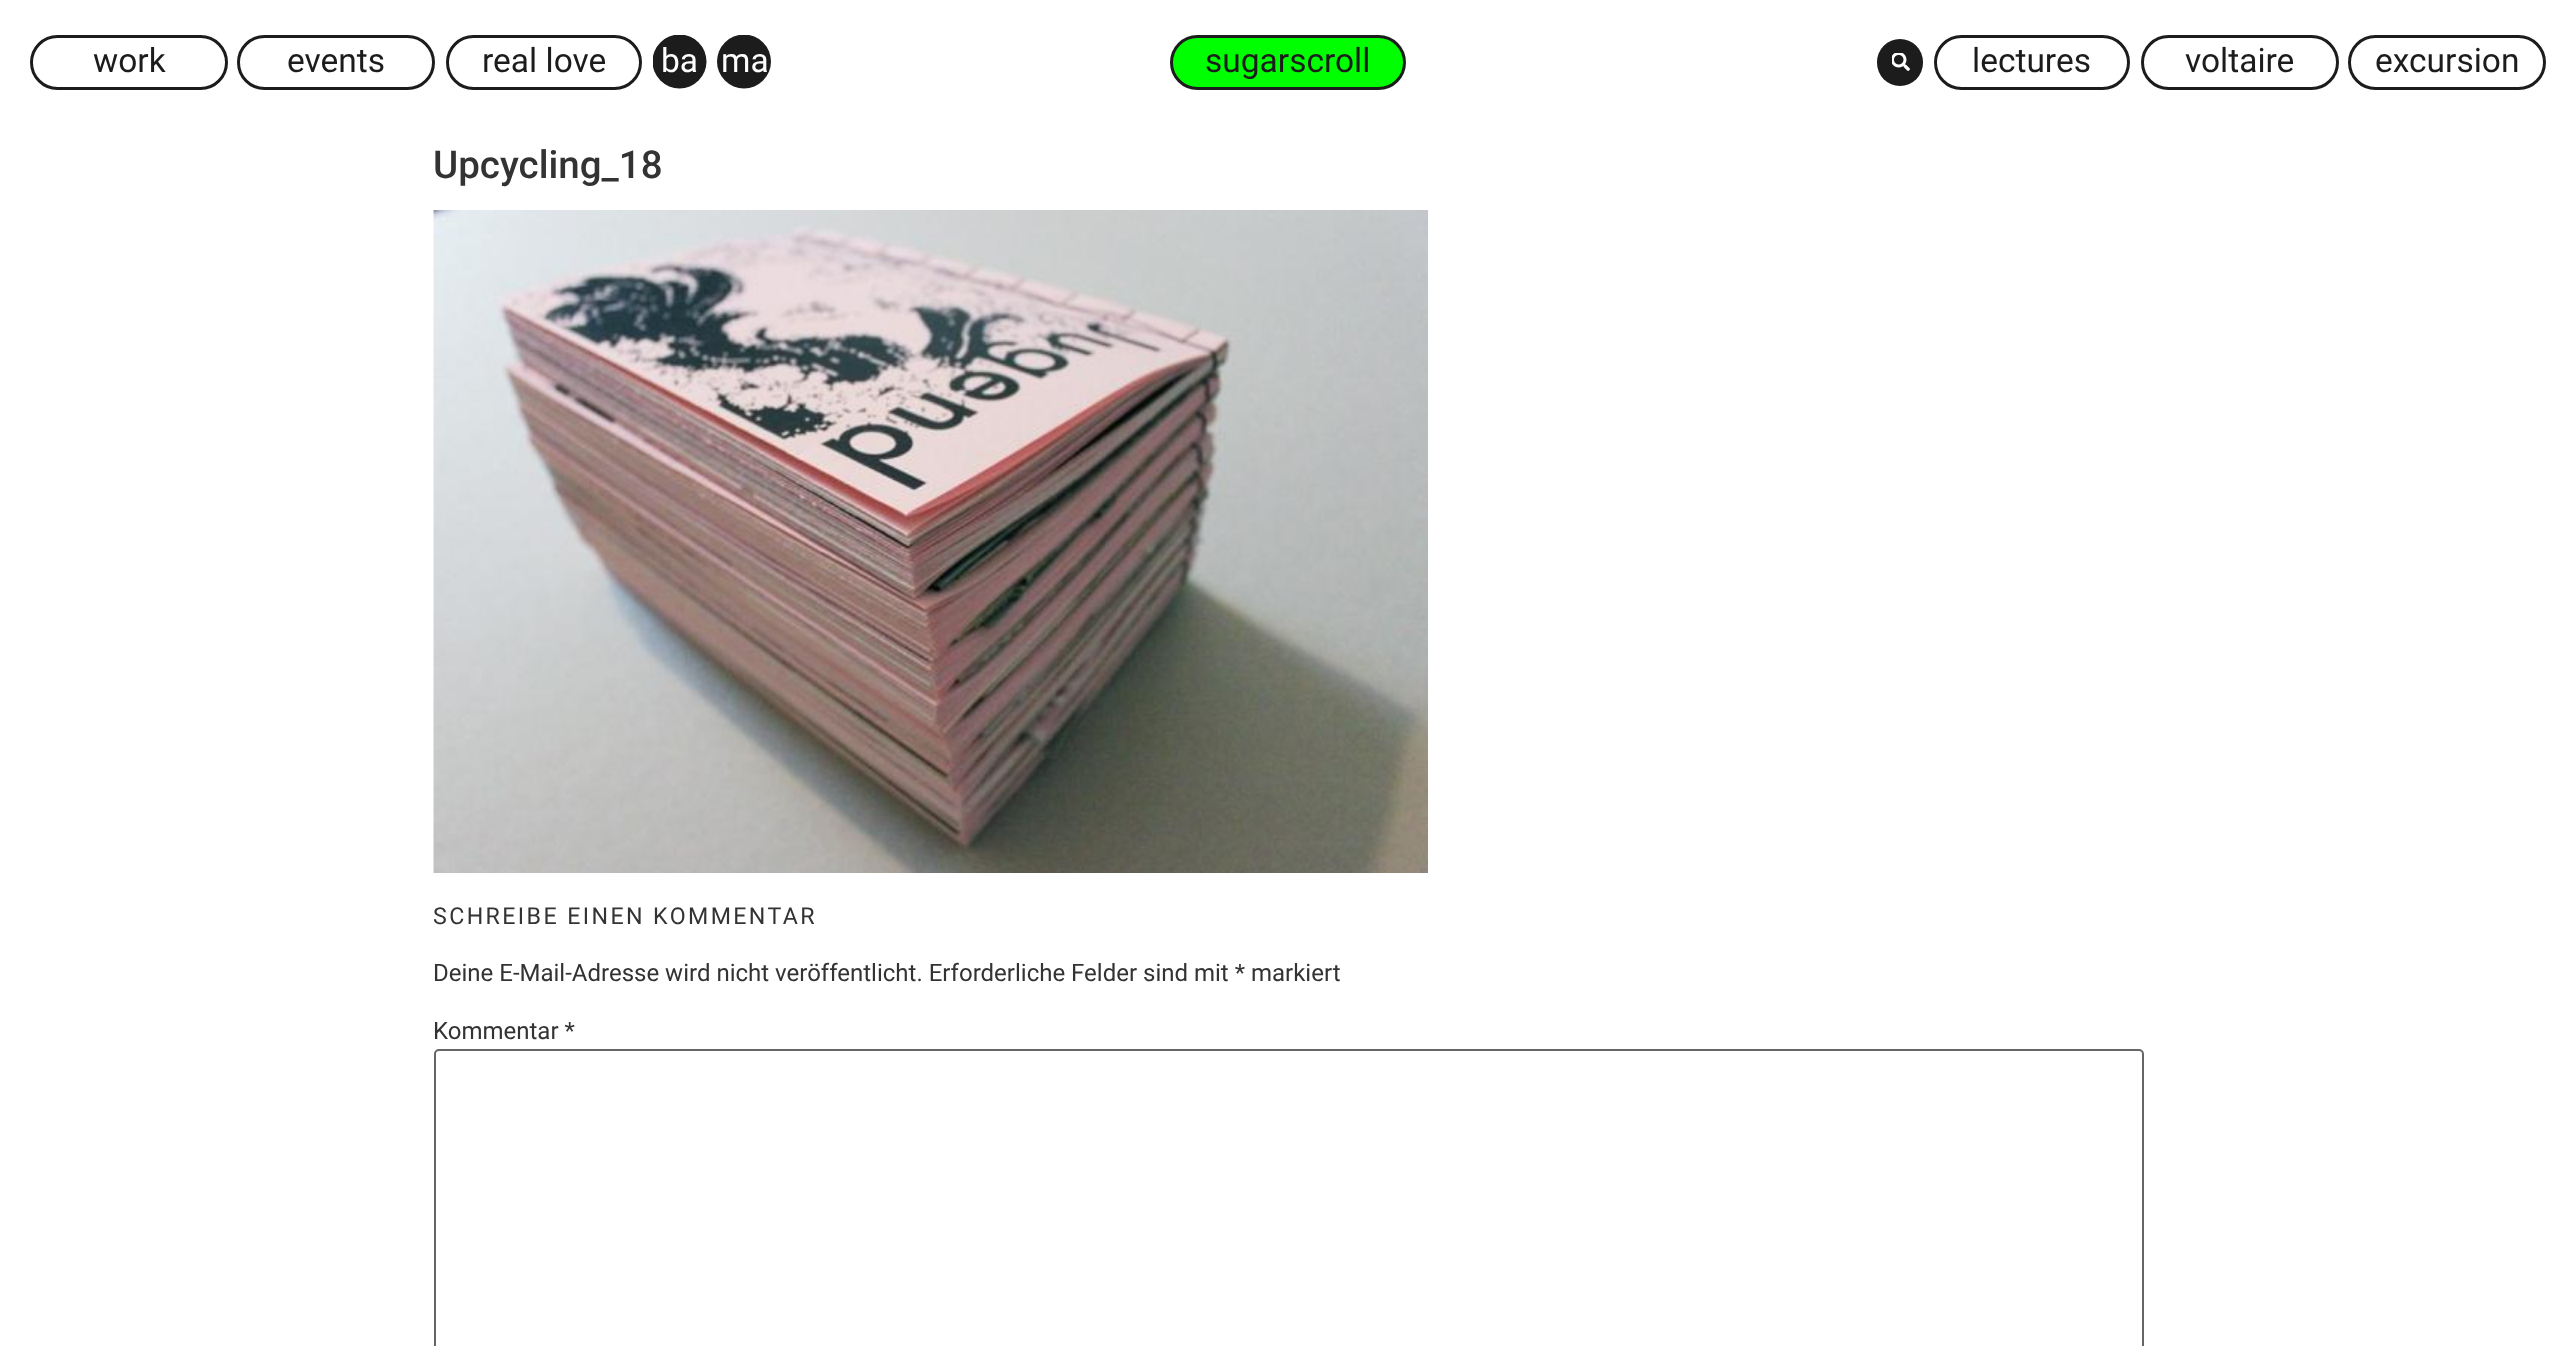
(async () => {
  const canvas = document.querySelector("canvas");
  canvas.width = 2575;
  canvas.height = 1346;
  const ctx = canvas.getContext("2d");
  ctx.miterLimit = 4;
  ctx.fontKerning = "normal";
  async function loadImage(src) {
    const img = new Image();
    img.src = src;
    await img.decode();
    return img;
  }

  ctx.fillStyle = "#ffffff";
  ctx.fillRect(0, 0, 2575, 1346);
  ctx.beginPath();
  ctx.roundRect(31.5, 36.5, 195, 52, 26);
  ctx.strokeStyle = "#1c1c1c";
  ctx.lineWidth = 3;
  ctx.stroke();
  ctx.beginPath();
  ctx.roundRect(238.5, 36.5, 195, 52, 26);
  ctx.stroke();
  ctx.beginPath();
  ctx.roundRect(447.5, 36.5, 193, 52, 26);
  ctx.stroke();
  ctx.save();
  ctx.beginPath();
  ctx.rect(653, 35, 54, 54);
  ctx.clip();
  ctx.fillStyle = "#1c1c1c";
  ctx.beginPath();
  ctx.arc(679.5, 61.5, 27, 0, Math.PI * 2);
  ctx.fill();
  ctx.restore();
  ctx.save();
  ctx.beginPath();
  ctx.rect(717, 35, 54, 54);
  ctx.clip();
  ctx.fillStyle = "#1c1c1c";
  ctx.beginPath();
  ctx.arc(744, 61.5, 27, 0, Math.PI * 2);
  ctx.fill();
  ctx.restore();
  ctx.fillStyle = "#00ff00";
  ctx.beginPath();
  ctx.roundRect(1171.5, 36.5, 233, 52, 26);
  ctx.fill();
  ctx.stroke();
  ctx.fillStyle = "#1c1c1c";
  ctx.beginPath();
  ctx.roundRect(1877, 39, 46, 47, 23);
  ctx.fill();
  ctx.drawImage(await loadImage("img/1.png"), 1892, 53, 18, 18);
  ctx.beginPath();
  ctx.roundRect(1935.5, 36.5, 193, 52, 26);
  ctx.stroke();
  ctx.beginPath();
  ctx.roundRect(2142.5, 36.5, 195, 52, 26);
  ctx.stroke();
  ctx.beginPath();
  ctx.roundRect(2349.5, 36.5, 195, 52, 26);
  ctx.stroke();
  ctx.drawImage(await loadImage("img/2.png"), 433, 210, 995, 663);
  ctx.beginPath();
  ctx.roundRect(435, 1050, 1708, 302, 4);
  ctx.strokeStyle = "#666666";
  ctx.lineWidth = 2;
  ctx.stroke();
  ctx.font = "33.5px Roboto";
  for (const [text, x, y] of [
    ["work", 93, 72],
    ["events", 287, 72],
    ["real love", 482, 72],
  ]) {
    ctx.fillText(text, x, y);
  }
  ctx.fillStyle = "#ffffff";
  ctx.fillText("ba", 661, 72);
  ctx.fillText("ma", 721, 72);
  ctx.fillStyle = "#1c1c1c";
  for (const [text, x, y] of [
    ["sugarscroll", 1205, 72],
    ["lectures", 1972, 72],
    ["voltaire", 2185, 72],
    ["excursion", 2375, 72],
  ]) {
    ctx.fillText(text, x, y);
  }
  ctx.font = "500 38.5px Roboto";
  ctx.fillStyle = "#333333";
  ctx.fillText("Upcycling_18", 433, 178);
  ctx.letterSpacing = "2.4px";
  ctx.font = "23.2px Roboto";
  ctx.fillText("SCHREIBE EINEN KOMMENTAR", 433, 924);
  ctx.letterSpacing = "0px";
  ctx.font = "24px Roboto";
  ctx.fillText("Deine E-Mail-Adresse wird nicht veröffentlicht. Erforderliche Felder sind mit * markiert", 433, 981);
  ctx.fillText("Kommentar *", 433, 1039);
})();
